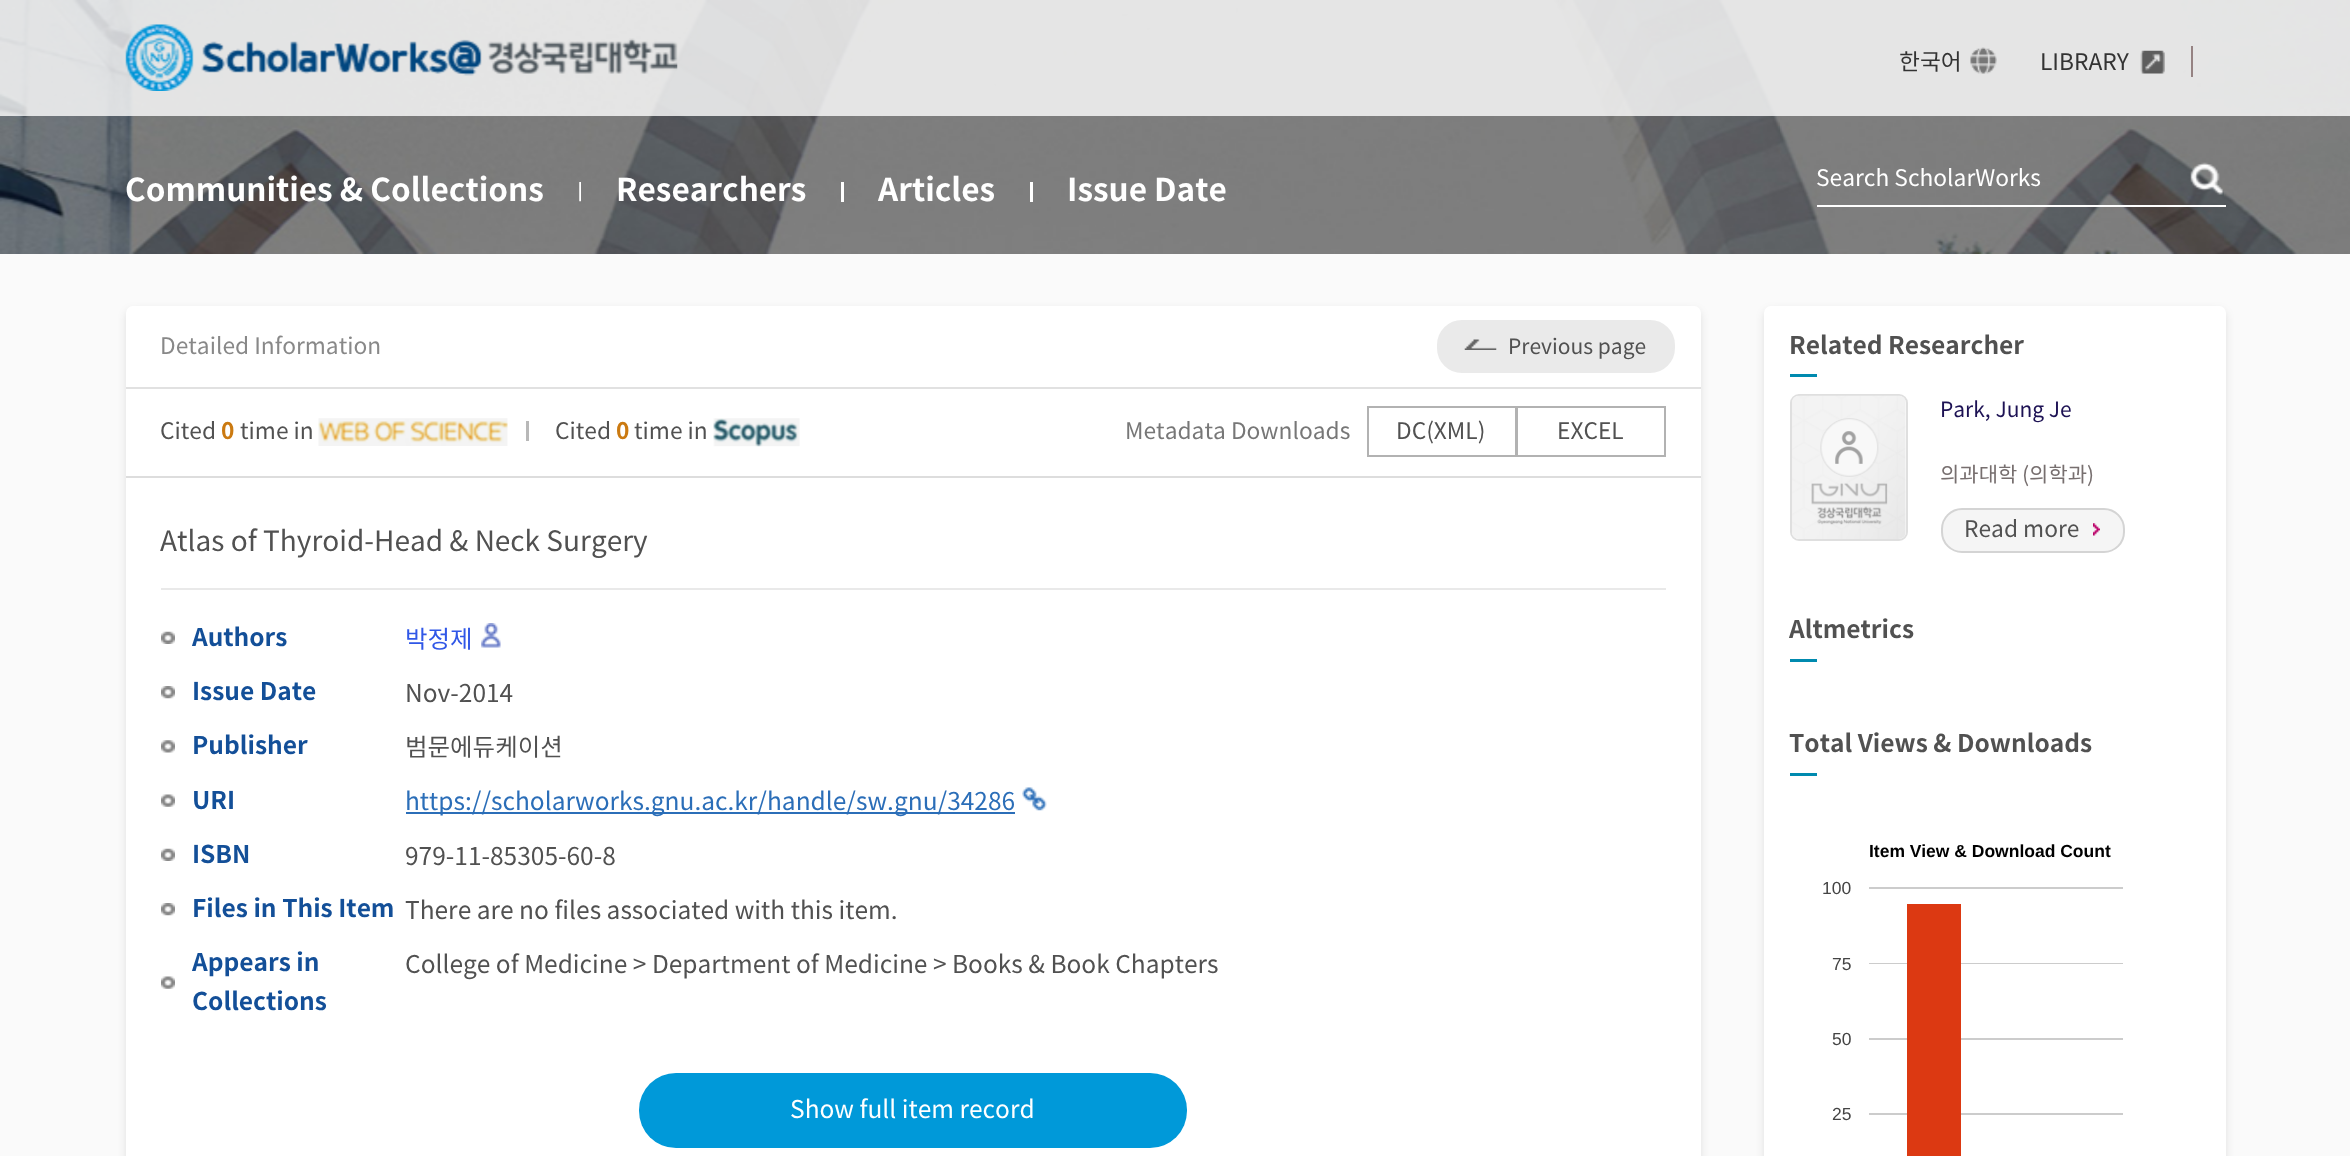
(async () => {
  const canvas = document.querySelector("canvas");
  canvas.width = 2350;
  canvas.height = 1156;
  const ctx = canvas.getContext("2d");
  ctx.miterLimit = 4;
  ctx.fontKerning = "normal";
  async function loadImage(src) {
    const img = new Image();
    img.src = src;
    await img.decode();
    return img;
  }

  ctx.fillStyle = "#fafafa";
  ctx.fillRect(0, 0, 2350, 1156);
  ctx.drawImage(await loadImage("img/1.png"), 0, 0, 2350, 254);
  ctx.fillStyle = "rgba(255, 255, 255, 0.8)";
  ctx.fillRect(0, 0, 2350, 116);
  ctx.drawImage(await loadImage("img/2.png"), 125, 24, 553, 67);
  ctx.drawImage(await loadImage("img/3.png"), 1970, 47, 27, 27);
  ctx.drawImage(await loadImage("img/4.png"), 2140, 50, 25, 24);
  ctx.fillStyle = "#958282";
  ctx.fillRect(2191, 46, 2, 31);
  ctx.drawImage(await loadImage("img/5.png"), 579, 182, 2, 20);
  for (const [x, y, w, h, color] of [
    [841, 182, 3, 20, "#ffffff"],
    [1030, 182, 3, 20, "#ffffff"],
    [1817, 205, 409, 2, "#ffffff"],
  ]) {
    ctx.fillStyle = color;
    ctx.fillRect(x, y, w, h);
  }
  ctx.drawImage(await loadImage("img/6.png"), 2190, 162, 34, 33);
  ctx.fillStyle = "rgba(0, 0, 0, 0.1)";
  ctx.filter = "blur(4.5px)";
  ctx.beginPath();
  ctx.roundRect(126, 310, 1575, 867, 7);
  ctx.fill();
  ctx.filter = "none";
  ctx.fillStyle = "#ffffff";
  ctx.beginPath();
  ctx.roundRect(126, 306, 1575, 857, 7);
  ctx.fill();
  ctx.fillStyle = "#e1e1e1";
  ctx.fillRect(126, 387, 1575, 2);
  ctx.fillStyle = "#eaeaea";
  ctx.beginPath();
  ctx.roundRect(1438, 321, 236, 51, 24);
  ctx.fill();
  ctx.strokeStyle = "#eaeaea";
  ctx.lineWidth = 2;
  ctx.stroke();
  ctx.drawImage(await loadImage("img/7.png"), 1464, 339, 33, 11);
  ctx.fillStyle = "#dddddd";
  ctx.fillRect(126, 476, 1575, 2);
  ctx.fillStyle = "#b8b8b8";
  ctx.fillRect(526, 421, 3, 20);
  ctx.drawImage(await loadImage("img/8.png"), 318, 418, 190, 28);
  ctx.drawImage(await loadImage("img/9.png"), 713, 418, 87, 29);
  ctx.strokeStyle = "#b2b2b2";
  ctx.strokeRect(1368, 407, 148, 49);
  ctx.strokeRect(1517, 407, 148, 49);
  ctx.fillStyle = "#e9e9e9";
  ctx.fillRect(161, 588, 1505, 2);
  ctx.drawImage(await loadImage("img/10.png"), 161, 631, 14, 13);
  ctx.drawImage(await loadImage("img/11.png"), 481, 623, 20, 25);
  ctx.drawImage(await loadImage("img/12.png"), 161, 686, 14, 13);
  ctx.drawImage(await loadImage("img/13.png"), 161, 740, 14, 13);
  ctx.drawImage(await loadImage("img/14.png"), 161, 794, 14, 13);
  ctx.drawImage(await loadImage("img/15.png"), 1022, 787, 25, 24);
  ctx.fillStyle = "#2b6eb8";
  ctx.fillRect(406, 812, 609, 2);
  ctx.drawImage(await loadImage("img/10.png"), 161, 848, 14, 13);
  ctx.drawImage(await loadImage("img/12.png"), 161, 903, 14, 13);
  ctx.drawImage(await loadImage("img/14.png"), 161, 976, 14, 13);
  ctx.fillStyle = "#0099d9";
  ctx.beginPath();
  ctx.roundRect(639, 1073, 548, 75, 37);
  ctx.fill();
  ctx.fillStyle = "rgba(0, 0, 0, 0.1)";
  ctx.filter = "blur(4.5px)";
  ctx.beginPath();
  ctx.roundRect(1764, 310, 462, 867, 7);
  ctx.fill();
  ctx.filter = "none";
  ctx.fillStyle = "#ffffff";
  ctx.beginPath();
  ctx.roundRect(1764, 306, 462, 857, 7);
  ctx.fill();
  ctx.fillStyle = "#008aaf";
  ctx.fillRect(1790, 374, 27, 3);
  ctx.beginPath();
  ctx.roundRect(1791, 395, 116, 145, 8);
  ctx.strokeStyle = "#dfdfdf";
  ctx.stroke();
  ctx.drawImage(await loadImage("img/16.png"), 1792, 395, 114, 144);
  ctx.fillStyle = "#f5f5f5";
  ctx.beginPath();
  ctx.roundRect(1942, 509, 182, 43, 20);
  ctx.fill();
  ctx.strokeStyle = "#d4d4d4";
  ctx.stroke();
  ctx.drawImage(await loadImage("img/17.png"), 2093, 523, 7, 13);
  for (const [x, y, w, h, color] of [
    [1790, 659, 27, 3, "#008aaf"],
    [1790, 773, 27, 3, "#008aaf"],
    [1869, 887, 254, 2, "#cccccc"],
    [1869, 963, 254, 1, "#cccccc"],
    [1869, 1038, 254, 2, "#cccccc"],
    [1869, 1113, 254, 2, "#cccccc"],
    [1907, 904, 54, 252, "#dc3912"],
  ]) {
    ctx.fillStyle = color;
    ctx.fillRect(x, y, w, h);
  }
  ctx.font = "22.75px Noto Sans KR";
  ctx.fillStyle = "#333333";
  ctx.fillText("한국어", 1899, 70);
  ctx.fillText("LIBRARY", 2040, 70);
  ctx.font = "bold 31.5px Noto Sans KR";
  ctx.fillStyle = "#ffffff";
  for (const [text, x, y] of [
    ["Communities & Collections", 125, 201],
    ["Researchers", 616, 201],
    ["Articles", 878, 201],
    ["Issue Date", 1067, 201],
  ]) {
    ctx.fillText(text, x, y);
  }
  ctx.font = "22.75px Noto Sans KR";
  ctx.fillText("Search ScholarWorks", 1816, 186);
  ctx.fillStyle = "#888888";
  ctx.fillText("Detailed Information", 160, 354);
  ctx.font = "21px Noto Sans KR";
  ctx.fillStyle = "#515151";
  ctx.fillText("Previous page", 1508, 354);
  ctx.font = "22.75px Noto Sans KR";
  ctx.fillText("Cited", 160, 439);
  ctx.font = "bold 22.75px Noto Sans KR";
  ctx.fillStyle = "#cb7a11";
  ctx.fillText("0", 221, 439);
  ctx.font = "22.75px Noto Sans KR";
  ctx.fillStyle = "#515151";
  ctx.fillText("time in", 240, 439);
  ctx.fillText("Cited", 555, 439);
  ctx.font = "bold 22.75px Noto Sans KR";
  ctx.fillStyle = "#cb7a11";
  ctx.fillText("0", 616, 439);
  ctx.font = "22.75px Noto Sans KR";
  ctx.fillStyle = "#515151";
  ctx.fillText("time in", 634, 439);
  ctx.fillStyle = "#777777";
  ctx.fillText("Metadata Downloads", 1125, 439);
  ctx.fillStyle = "#515151";
  ctx.fillText("DC(XML)", 1396, 439);
  ctx.fillText("EXCEL", 1557, 439);
  ctx.font = "28px Noto Sans KR";
  ctx.fillText("Atlas of Thyroid-Head & Neck Surgery", 160, 551);
  ctx.font = "bold 24.5px Noto Sans KR";
  ctx.fillStyle = "#134f98";
  ctx.fillText("Authors", 192, 646);
  ctx.font = "24.5px Noto Sans KR";
  ctx.fillStyle = "#3057e7";
  ctx.fillText("박정제", 405, 648);
  ctx.font = "bold 24.5px Noto Sans KR";
  ctx.fillStyle = "#134f98";
  ctx.fillText("Issue Date", 192, 700);
  ctx.font = "24.5px Noto Sans KR";
  ctx.fillStyle = "#515151";
  ctx.fillText("Nov-2014", 405, 702);
  ctx.font = "bold 24.5px Noto Sans KR";
  ctx.fillStyle = "#134f98";
  ctx.fillText("Publisher", 192, 754);
  ctx.font = "24.5px Noto Sans KR";
  ctx.fillStyle = "#515151";
  ctx.fillText("범문에듀케이션", 405, 756);
  ctx.font = "bold 24.5px Noto Sans KR";
  ctx.fillStyle = "#134f98";
  ctx.fillText("URI", 192, 809);
  ctx.font = "24.5px Noto Sans KR";
  ctx.fillStyle = "#2b6eb8";
  ctx.fillText("https://scholarworks.gnu.ac.kr/handle/sw.gnu/34286", 405, 810);
  ctx.font = "bold 24.5px Noto Sans KR";
  ctx.fillStyle = "#134f98";
  ctx.fillText("ISBN", 192, 863);
  ctx.font = "24.5px Noto Sans KR";
  ctx.fillStyle = "#515151";
  ctx.fillText("979-11-85305-60-8", 405, 865);
  ctx.font = "bold 24.5px Noto Sans KR";
  ctx.fillStyle = "#134f98";
  ctx.fillText("Files in This Item", 192, 917);
  ctx.font = "24.5px Noto Sans KR";
  ctx.fillStyle = "#515151";
  ctx.fillText("There are no files associated with this item.", 405, 919);
  ctx.font = "bold 24.5px Noto Sans KR";
  ctx.fillStyle = "#134f98";
  ctx.fillText("Appears in", 192, 971);
  ctx.fillText("Collections", 192, 1010);
  ctx.font = "24.5px Noto Sans KR";
  ctx.fillStyle = "#515151";
  ctx.fillText("College of Medicine > Department of Medicine > Books & Book Chapters", 405, 973);
  ctx.fillStyle = "#ffffff";
  ctx.fillText("Show full item record", 790, 1118);
  ctx.font = "bold 24.5px Noto Sans KR";
  ctx.fillStyle = "#515151";
  ctx.fillText("Related Researcher", 1789, 354);
  ctx.font = "21px Noto Sans KR";
  ctx.fillStyle = "#1d1254";
  ctx.fillText("Park, Jung Je", 1940, 417);
  ctx.fillStyle = "#776f6f";
  ctx.fillText("의과대학 (의학과)", 1940, 482);
  ctx.font = "22.75px Noto Sans KR";
  ctx.fillStyle = "#515151";
  ctx.fillText("Read more", 1964, 537);
  ctx.font = "bold 24.5px Noto Sans KR";
  ctx.fillText("Altmetrics", 1789, 638);
  ctx.fillText("Total Views & Downloads", 1789, 752);
  ctx.font = "bold 17.5px Liberation Sans";
  ctx.fillStyle = "#000000";
  ctx.fillText("Item View & Download Count", 1869, 857);
  ctx.font = "17.5px Liberation Sans";
  ctx.fillStyle = "#444444";
  for (const [text, x, y] of [
    ["100", 1822, 894],
    ["75", 1832, 970],
    ["50", 1832, 1045],
    ["25", 1832, 1120],
  ]) {
    ctx.fillText(text, x, y);
  }
})();
